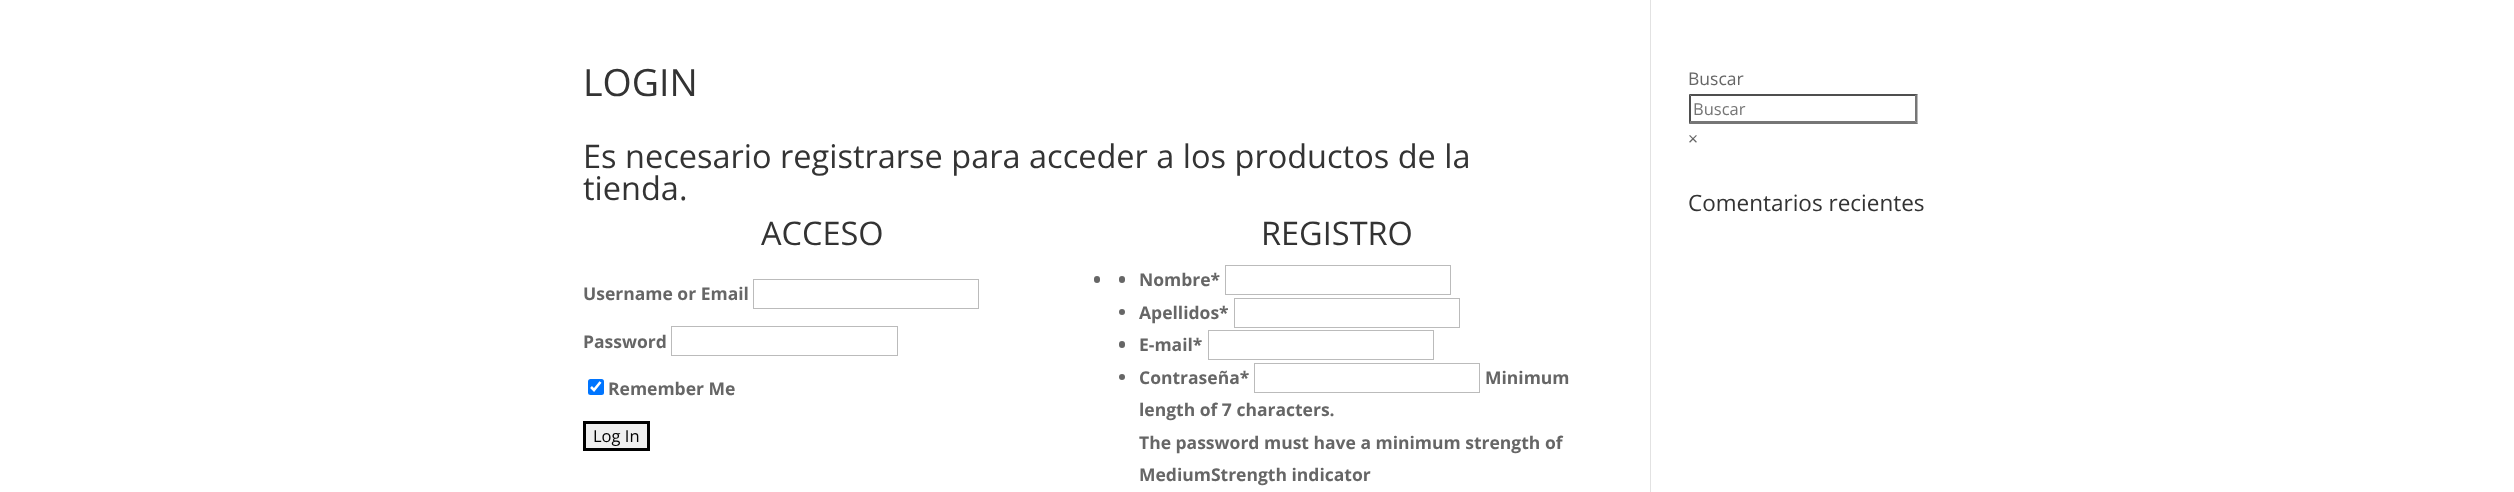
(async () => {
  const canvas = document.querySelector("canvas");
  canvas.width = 2514;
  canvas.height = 492;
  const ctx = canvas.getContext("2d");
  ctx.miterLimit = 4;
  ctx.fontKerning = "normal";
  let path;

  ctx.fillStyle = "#ffffff";
  ctx.fillRect(0, 0, 2514, 492);
  ctx.fillStyle = "#e2e2e2";
  ctx.fillRect(1650, 0, 1, 492);
  ctx.strokeStyle = "#bbbbbb";
  ctx.strokeRect(753.5, 279.5, 225, 29);
  ctx.strokeRect(671.5, 326.5, 226, 29);
  ctx.fillStyle = "#0075ff";
  ctx.beginPath();
  ctx.roundRect(588, 379, 16, 16, 2.5);
  ctx.fill();
  path = new Path2D("M591 387L594 390L600.5 382");
  ctx.strokeStyle = "#ffffff";
  ctx.lineWidth = 2.6;
  ctx.stroke(path);
  ctx.fillStyle = "#efefef";
  ctx.beginPath();
  ctx.rect(584.5, 422.5, 64, 27);
  ctx.fill();
  ctx.strokeStyle = "#000000";
  ctx.lineWidth = 3;
  ctx.stroke();
  ctx.fillStyle = "#666666";
  ctx.beginPath();
  ctx.roundRect(1094, 276, 6, 7, 3);
  ctx.fill();
  ctx.beginPath();
  ctx.roundRect(1119, 276, 6, 7, 3);
  ctx.fill();
  ctx.strokeStyle = "#bbbbbb";
  ctx.lineWidth = 1;
  ctx.strokeRect(1225.5, 265.5, 225, 29);
  ctx.beginPath();
  ctx.arc(1122, 312, 3, 0, Math.PI * 2);
  ctx.fill();
  ctx.strokeRect(1234.5, 298.5, 225, 29);
  ctx.beginPath();
  ctx.roundRect(1119, 341, 6, 7, 3);
  ctx.fill();
  ctx.strokeRect(1208.5, 330.5, 225, 29);
  ctx.beginPath();
  ctx.arc(1122, 377, 3, 0, Math.PI * 2);
  ctx.fill();
  ctx.strokeRect(1254.5, 363.5, 225, 29);
  ctx.fillStyle = "#4f4f4f";
  path = new Path2D("M1689 94H1918L1915 96H1691Z");
  ctx.fill(path);
  ctx.fillStyle = "#767676";
  path = new Path2D("M1917.5 94V124L1915 121V96Z");
  ctx.fill(path);
  path = new Path2D("M1918 124H1689L1691 121H1915Z");
  ctx.fill(path);
  ctx.fillStyle = "#4f4f4f";
  path = new Path2D("M1689 124V94L1691 96V121Z");
  ctx.fill(path);
  ctx.font = "37.5px Open Sans";
  ctx.fillStyle = "#333333";
  ctx.fillText("LOGIN", 583, 96);
  ctx.font = "32.5px Open Sans";
  for (const [text, x, y] of [
    ["Es necesario registrarse para acceder a los productos de la", 583, 168],
    ["tienda.", 583, 200],
    ["ACCESO", 761, 245],
  ]) {
    ctx.fillText(text, x, y);
  }
  ctx.font = "bold 17.5px Open Sans";
  ctx.fillStyle = "#666666";
  for (const [text, x, y] of [
    ["Username or Email", 583, 300],
    ["Password", 583, 348],
    ["Remember Me", 608, 395],
  ]) {
    ctx.fillText(text, x, y);
  }
  ctx.font = "16.5px Open Sans";
  ctx.fillStyle = "#000000";
  ctx.fillText("Log In", 593, 442);
  ctx.font = "32.5px Open Sans";
  ctx.fillStyle = "#333333";
  ctx.fillText("REGISTRO", 1261, 245);
  ctx.font = "bold 17.5px Open Sans";
  ctx.fillStyle = "#666666";
  for (const [text, x, y] of [
    ["Nombre*", 1139, 286],
    ["Apellidos*", 1139, 319],
    ["E-mail*", 1139, 351],
    ["Contraseña*", 1139, 384],
    ["Minimum", 1485, 384],
    ["length of 7 characters.", 1139, 416],
    ["The password must have a minimum strength of", 1139, 449],
    ["MediumStrength indicator", 1139, 481],
  ]) {
    ctx.fillText(text, x, y);
  }
  ctx.font = "17.5px Open Sans";
  ctx.fillText("Buscar", 1688, 85);
  ctx.font = "16.5px Open Sans";
  ctx.fillStyle = "#757575";
  ctx.fillText("Buscar", 1693, 115);
  ctx.font = "17.5px Open Sans";
  ctx.fillStyle = "#666666";
  ctx.fillText("×", 1688, 145);
  ctx.font = "22.5px Open Sans";
  ctx.fillStyle = "#333333";
  ctx.fillText("Comentarios recientes", 1688, 211);
})();
